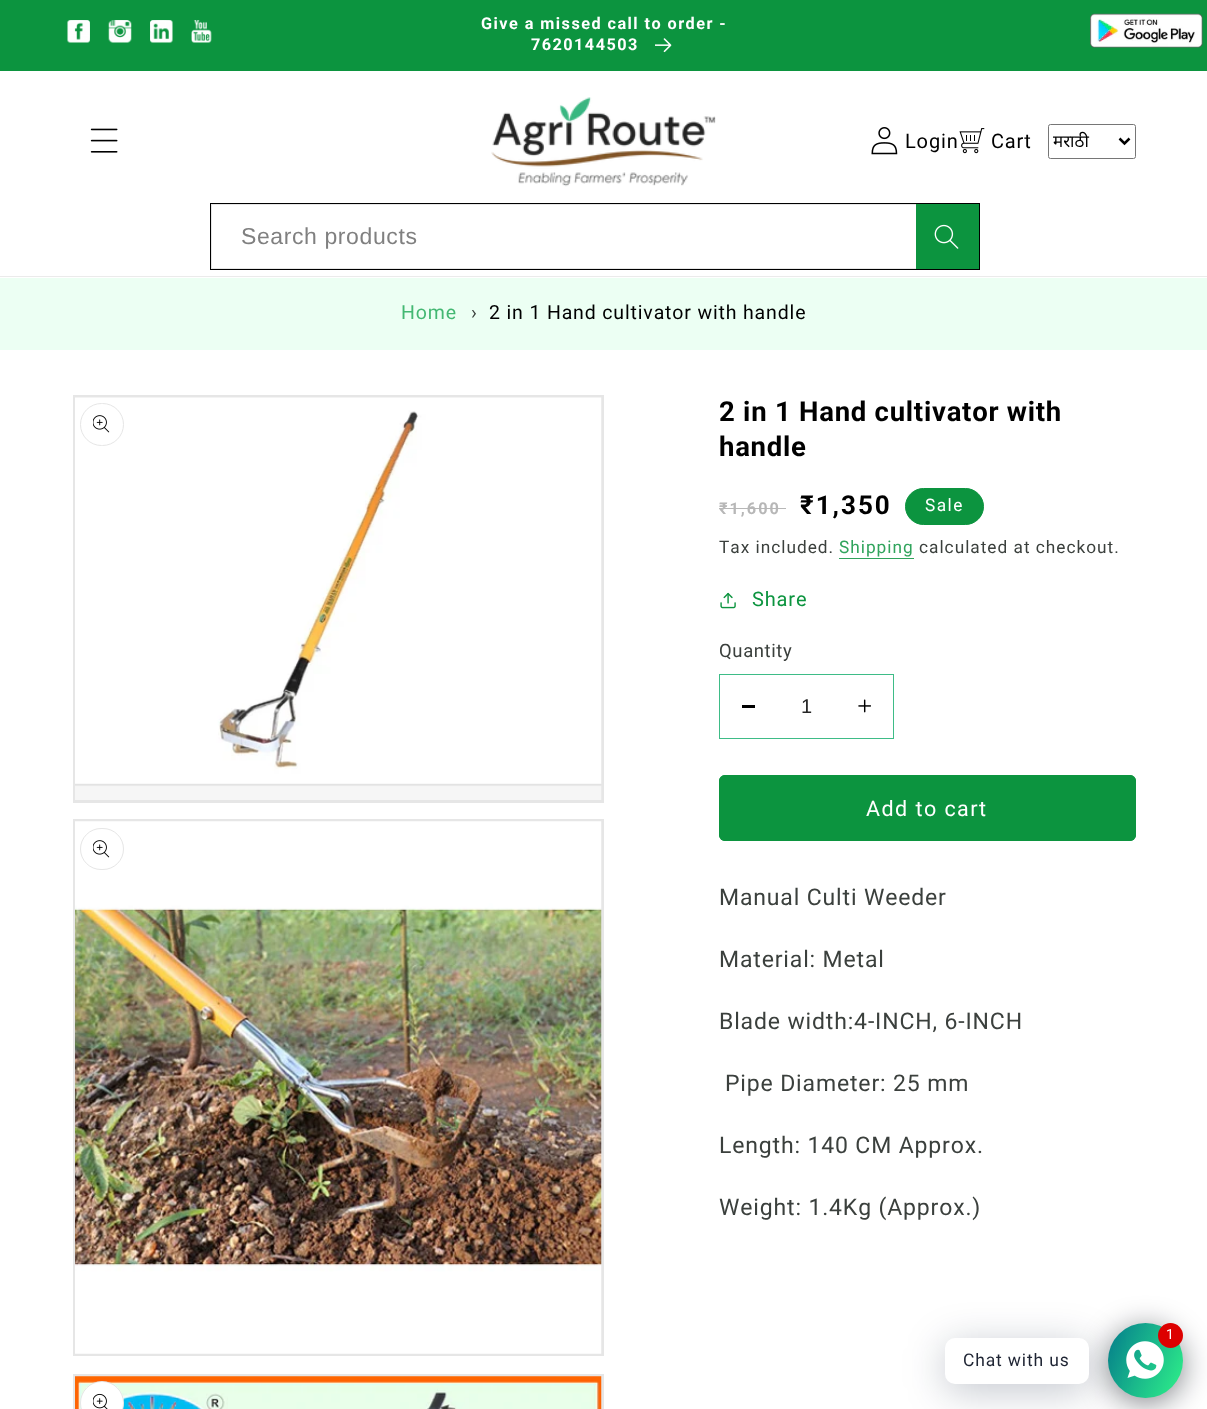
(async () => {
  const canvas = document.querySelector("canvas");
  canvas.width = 1207;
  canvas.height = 1409;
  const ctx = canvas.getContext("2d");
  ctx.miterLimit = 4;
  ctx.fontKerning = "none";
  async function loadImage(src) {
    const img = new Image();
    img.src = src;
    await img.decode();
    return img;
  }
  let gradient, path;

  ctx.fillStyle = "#ffffff";
  ctx.fillRect(0, 0, 1207, 1409);
  ctx.fillStyle = "#0c943f";
  ctx.fillRect(0, 0, 1207, 71);
  ctx.drawImage(await loadImage("img/1.png"), 67, 20, 23, 23);
  ctx.drawImage(await loadImage("img/2.png"), 108, 20, 24, 23);
  ctx.drawImage(await loadImage("img/3.png"), 150, 20, 23, 23);
  ctx.drawImage(await loadImage("img/4.png"), 191, 20, 21, 23);
  ctx.drawImage(await loadImage("img/5.png"), 655, 38, 17, 15);
  ctx.drawImage(await loadImage("img/6.png"), 1090, 13, 113, 35);
  ctx.fillStyle = "#ebebeb";
  ctx.fillRect(0, 276, 1207, 1);
  ctx.drawImage(await loadImage("img/7.png"), 90, 128, 28, 25);
  ctx.drawImage(await loadImage("img/8.png"), 491, 97, 225, 90);
  ctx.drawImage(await loadImage("img/9.png"), 871, 127, 27, 28);
  ctx.drawImage(await loadImage("img/10.png"), 959, 128, 26, 26);
  ctx.beginPath();
  ctx.roundRect(1048.5, 124.5, 87, 34, 2);
  ctx.strokeStyle = "#767676";
  ctx.stroke();
  path = new Path2D("M1119.5 138.5L1124.5 143.5L1129.5 138.5");
  ctx.strokeStyle = "#000000";
  ctx.lineWidth = 2.5;
  ctx.stroke(path);
  ctx.lineWidth = 1;
  ctx.strokeRect(210.5, 203.5, 769, 66);
  ctx.strokeStyle = "#e6e6e6";
  ctx.strokeRect(211.5, 204.5, 767, 64);
  ctx.fillStyle = "#0c943f";
  ctx.fillRect(916, 204, 63, 65);
  ctx.drawImage(await loadImage("img/11.png"), 934, 224, 25, 25);
  ctx.fillStyle = "#ecfff3";
  ctx.fillRect(0, 278, 1207, 72);
  ctx.lineWidth = 3;
  ctx.strokeRect(74.5, 396.5, 528, 405);
  ctx.drawImage(await loadImage("img/12.png"), 75, 397, 527, 403);
  ctx.beginPath();
  ctx.roundRect(80.5, 403.5, 43, 42, 21);
  ctx.lineWidth = 1;
  ctx.stroke();
  ctx.drawImage(await loadImage("img/13.png"), 93, 415, 17, 18);
  ctx.lineWidth = 3;
  ctx.strokeRect(74.5, 820.5, 528, 534);
  ctx.drawImage(await loadImage("img/14.png"), 75, 821, 527, 533);
  ctx.beginPath();
  ctx.roundRect(80.5, 828.5, 43, 41, 20.5);
  ctx.lineWidth = 1;
  ctx.stroke();
  ctx.drawImage(await loadImage("img/13.png"), 93, 840, 17, 18);
  ctx.lineWidth = 3;
  ctx.strokeRect(74.5, 1375.5, 528, 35);
  ctx.drawImage(await loadImage("img/15.png"), 75, 1376, 527, 33);
  ctx.fillStyle = "#ffffff";
  ctx.beginPath();
  ctx.arc(102, 1403, 22, 0, Math.PI * 2);
  ctx.fill();
  ctx.beginPath();
  ctx.arc(102, 1403, 21.5, 0, Math.PI * 2);
  ctx.strokeStyle = "rgba(0, 0, 0, 0.1)";
  ctx.lineWidth = 1;
  ctx.stroke();
  ctx.drawImage(await loadImage("img/16.png"), 93, 1393, 15, 16);
  ctx.fillStyle = "#b7b7b7";
  ctx.fillRect(719, 508, 67, 1);
  ctx.fillStyle = "#0c943f";
  ctx.beginPath();
  ctx.roundRect(905.5, 488.5, 78, 36, 18);
  ctx.fill();
  ctx.strokeStyle = "#0c943f";
  ctx.stroke();
  ctx.fillStyle = "#30a45c";
  ctx.fillRect(839, 558, 75, 1);
  ctx.drawImage(await loadImage("img/17.png"), 720, 592, 16, 17);
  ctx.strokeStyle = "#3ebc87";
  ctx.strokeRect(719.5, 674.5, 174, 64);
  ctx.fillStyle = "#000000";
  ctx.fillRect(742, 705, 13, 3);
  ctx.drawImage(await loadImage("img/18.png"), 858, 699, 13, 14);
  ctx.fillStyle = "#0c943f";
  ctx.beginPath();
  ctx.roundRect(719, 775, 417, 66, 6);
  ctx.fill();
  ctx.beginPath();
  ctx.roundRect(719.5, 775.5, 416, 65, 5.5);
  ctx.strokeStyle = "#0c943f";
  ctx.stroke();
  ctx.fillStyle = "rgba(2, 6, 16, 0.5)";
  ctx.filter = "blur(15px)";
  ctx.beginPath();
  ctx.roundRect(1108, 1328, 75, 75, 37.5);
  ctx.fill();
  ctx.filter = "none";
  gradient = ctx.createLinearGradient(1100, 1339, 1190, 1381);
  gradient.addColorStop(0, "#047c8d");
  gradient.addColorStop(1, "#2ff289");
  ctx.fillStyle = gradient;
  ctx.beginPath();
  ctx.arc(1145.5, 1360.5, 37.5, 0, Math.PI * 2);
  ctx.fill();
  ctx.fillStyle = "rgba(0, 18, 46, 0.24)";
  ctx.filter = "blur(20px)";
  ctx.beginPath();
  ctx.roundRect(945, 1345, 144, 46, 10);
  ctx.fill();
  ctx.filter = "none";
  ctx.drawImage(await loadImage("img/19.png"), 1126, 1341, 38, 38);
  ctx.fillStyle = "#dd0000";
  ctx.beginPath();
  ctx.arc(1170.5, 1335.5, 12.5, 0, Math.PI * 2);
  ctx.fill();
  ctx.fillStyle = "#ffffff";
  ctx.beginPath();
  ctx.roundRect(945, 1338, 144, 46, 10);
  ctx.fill();
  ctx.letterSpacing = "1.45px";
  ctx.font = "bold 16.25px Roboto";
  ctx.fillText("Give a missed call to order -", 481, 29);
  ctx.fillText("7620144503", 531, 50);
  ctx.letterSpacing = "0.85px";
  ctx.font = "20px Roboto";
  ctx.fillStyle = "#000000";
  ctx.fillText("Login", 905, 148);
  ctx.fillText("Cart", 991, 148);
  ctx.letterSpacing = "0px";
  ctx.font = "17px Noto Sans";
  ctx.fillText("मराठी", 1053, 147);
  ctx.letterSpacing = "0.6px";
  ctx.font = "23px Liberation Sans";
  ctx.fillStyle = "#808080";
  ctx.fillText("Search products", 241, 244);
  ctx.letterSpacing = "0.85px";
  ctx.font = "19.5px Roboto";
  ctx.fillStyle = "#43b872";
  ctx.fillText("Home", 401, 319);
  ctx.fillStyle = "#3b403d";
  ctx.fillText("›", 471, 319);
  ctx.fillStyle = "#000000";
  ctx.fillText("2 in 1 Hand cultivator with handle", 489, 319);
  ctx.letterSpacing = "0.75px";
  ctx.font = "bold 27.5px Roboto";
  ctx.fillText("2 in 1 Hand cultivator with", 719, 421);
  ctx.fillText("handle", 719, 456);
  ctx.letterSpacing = "2px";
  ctx.font = "bold 16.25px Roboto";
  ctx.fillStyle = "#b7b7b7";
  ctx.fillText("₹1,600", 719, 514);
  ctx.font = "bold 26px Roboto";
  ctx.fillStyle = "#000000";
  ctx.fillText("₹1,350", 800, 514);
  ctx.letterSpacing = "1.45px";
  ctx.font = "17.25px Roboto";
  ctx.fillStyle = "#ffffff";
  ctx.fillText("Sale", 925, 511);
  ctx.letterSpacing = "1px";
  ctx.fillStyle = "#3b403d";
  ctx.fillText("Tax included.", 719, 553);
  ctx.fillStyle = "#30a45c";
  ctx.fillText("Shipping", 839, 553);
  ctx.fillStyle = "#3b403d";
  ctx.fillText("calculated at checkout.", 919, 553);
  ctx.letterSpacing = "0.85px";
  ctx.font = "20px Roboto";
  ctx.fillStyle = "#0c943f";
  ctx.fillText("Share", 752, 606);
  ctx.letterSpacing = "0.6px";
  ctx.font = "18.5px Roboto";
  ctx.fillStyle = "#3b403d";
  ctx.fillText("Quantity", 719, 657);
  ctx.letterSpacing = "0px";
  ctx.font = "20px Liberation Sans";
  ctx.fillStyle = "#262626";
  ctx.fillText("1", 801, 713);
  ctx.letterSpacing = "1.45px";
  ctx.font = "21.5px Roboto";
  ctx.fillStyle = "#ffffff";
  ctx.fillText("Add to cart", 866, 816);
  ctx.letterSpacing = "0.85px";
  ctx.font = "23px Roboto";
  ctx.fillStyle = "#3b403d";
  for (const [text, x, y] of [
    ["Manual Culti Weeder", 719, 905],
    ["Material: Metal", 719, 967],
    ["Blade width:4-INCH, 6-INCH", 719, 1029],
    ["Pipe Diameter: 25 mm", 725, 1091],
    ["Length: 140 CM Approx.", 719, 1153],
    ["Weight: 1.4Kg (Approx.)", 719, 1215],
  ]) {
    ctx.fillText(text, x, y);
  }
  ctx.font = "14px Roboto";
  ctx.fillStyle = "#ffffff";
  ctx.fillText("1", 1166, 1339);
  ctx.font = "17.5px Roboto";
  ctx.fillStyle = "#1e2433";
  ctx.fillText("Chat with us", 963, 1366);
})();
